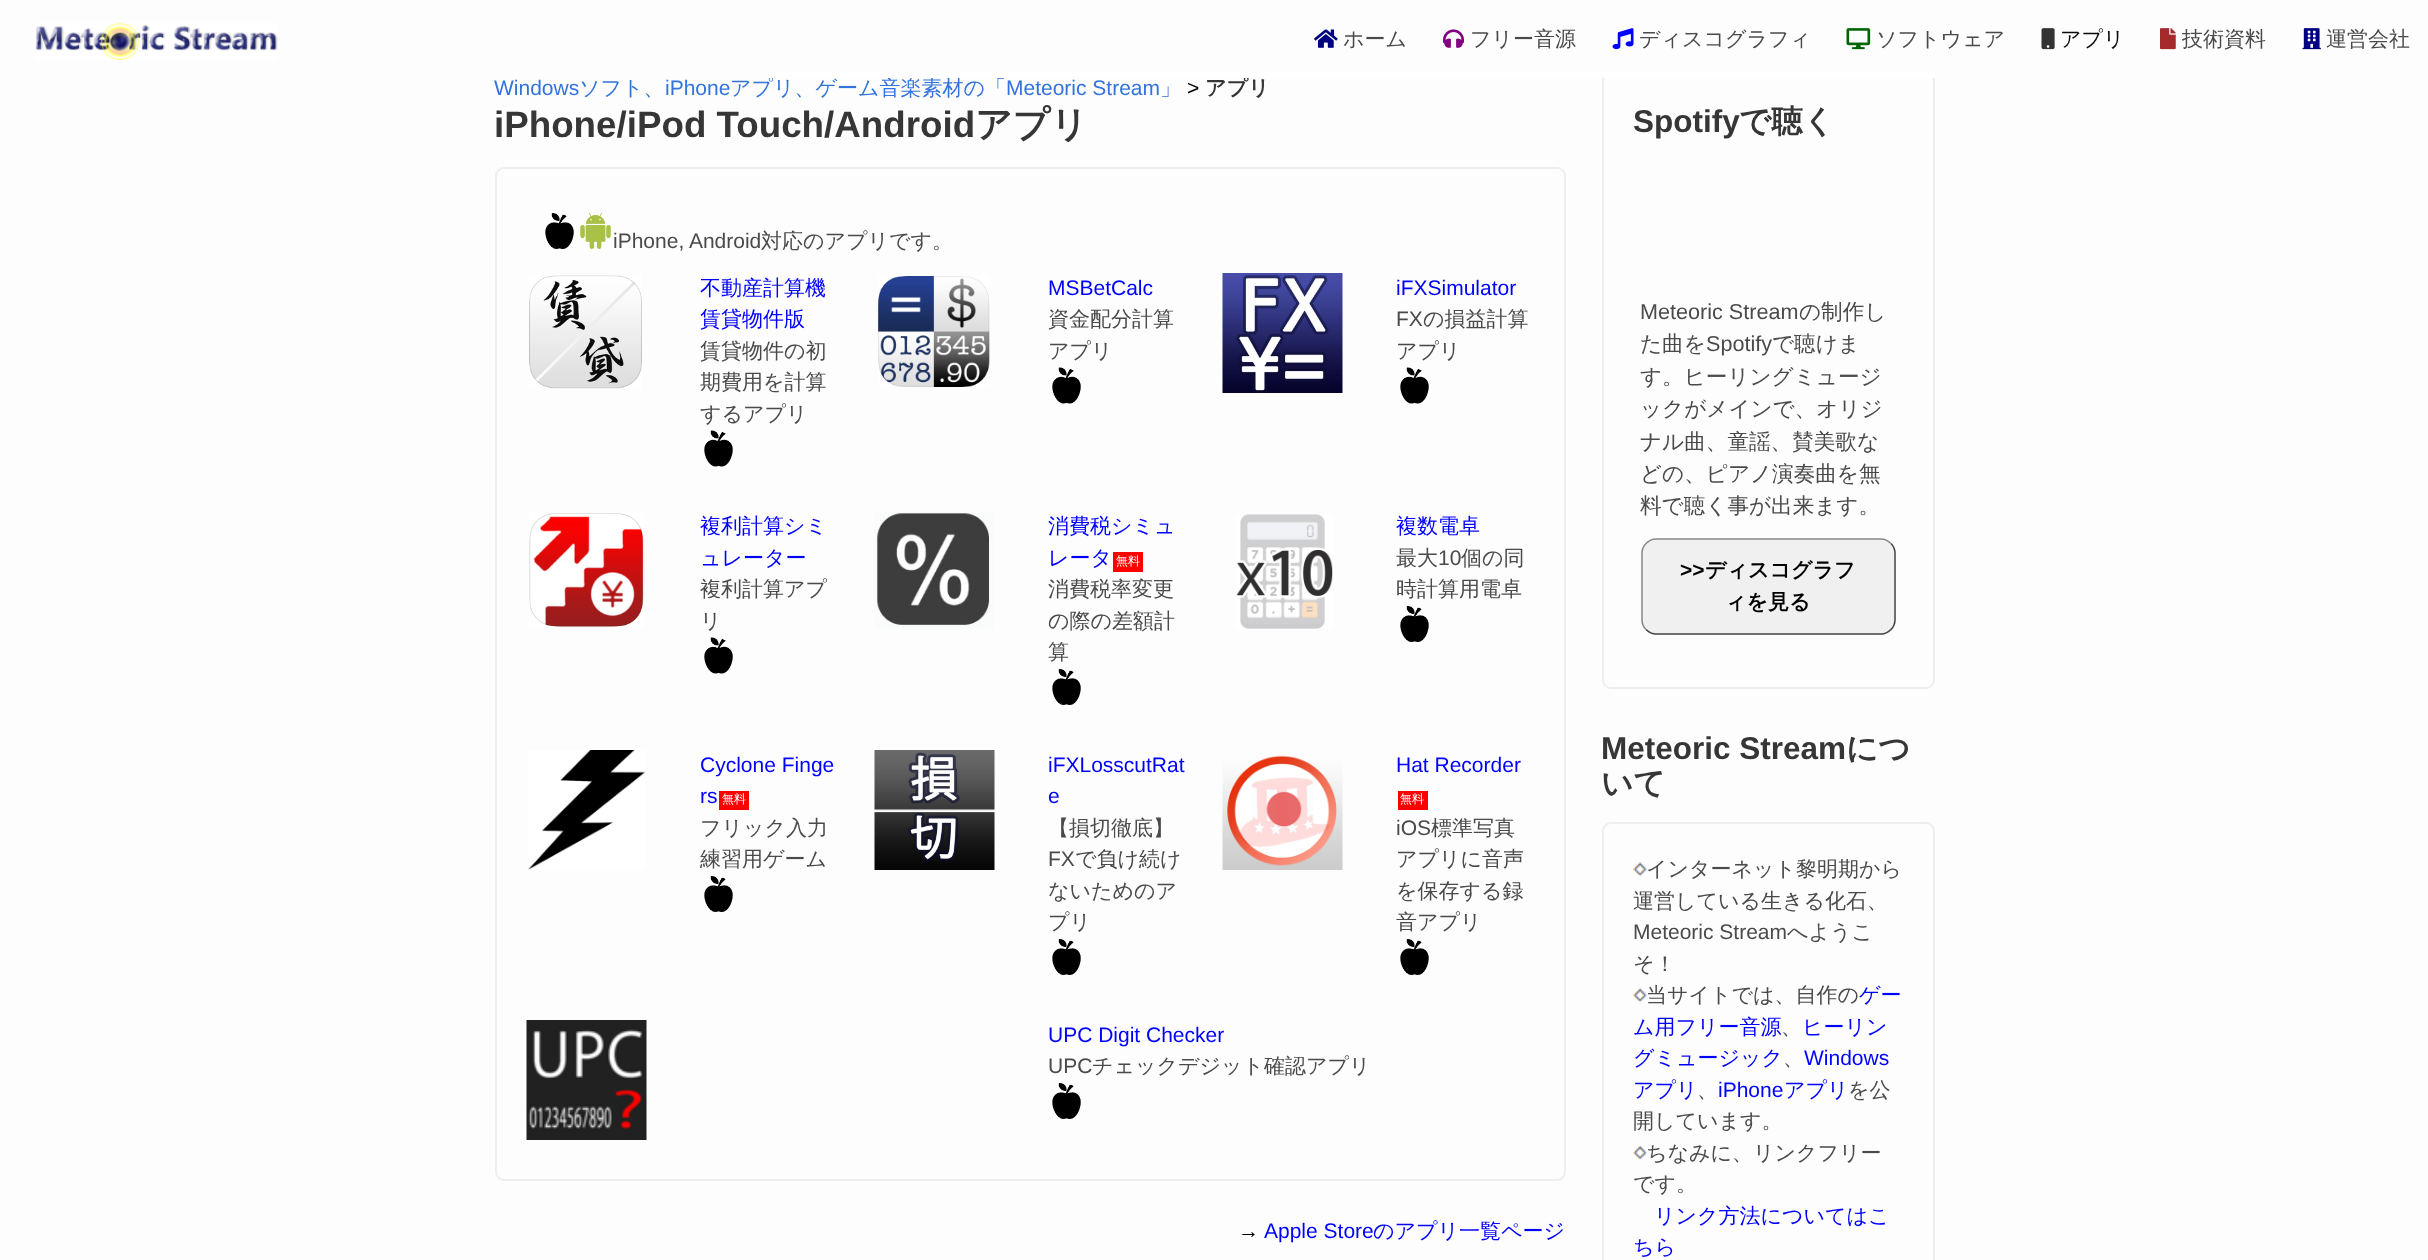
(async () => {
  const canvas = document.querySelector("canvas");
  canvas.width = 2428;
  canvas.height = 1260;
  const ctx = canvas.getContext("2d");
  ctx.miterLimit = 4;
  ctx.fontKerning = "normal";
  async function loadImage(src) {
    const img = new Image();
    img.src = src;
    await img.decode();
    return img;
  }
  let path;

  ctx.fillStyle = "#fdfdfd";
  ctx.fillRect(0, 0, 2428, 1260);
  ctx.drawImage(await loadImage("img/1.png"), 35, 23, 243, 37);
  ctx.drawImage(await loadImage("img/2.png"), 1314, 29, 24, 19);
  ctx.drawImage(await loadImage("img/3.png"), 1443, 29, 21, 19);
  ctx.drawImage(await loadImage("img/4.png"), 1612, 28, 22, 22);
  ctx.drawImage(await loadImage("img/5.png"), 1846, 28, 25, 22);
  ctx.drawImage(await loadImage("img/6.png"), 2041, 28, 14, 22);
  ctx.drawImage(await loadImage("img/7.png"), 2160, 28, 16, 22);
  ctx.drawImage(await loadImage("img/8.png"), 2302, 28, 19, 22);
  ctx.beginPath();
  ctx.roundRect(496, 168, 1069, 1012, 8);
  ctx.strokeStyle = "#eeeeee";
  ctx.lineWidth = 2;
  ctx.stroke();
  ctx.drawImage(await loadImage("img/9.png"), 545, 213, 29, 36);
  ctx.drawImage(await loadImage("img/10.png"), 580, 213, 31, 36);
  ctx.drawImage(await loadImage("img/11.png"), 529, 275, 113, 114);
  ctx.drawImage(await loadImage("img/12.png"), 704, 430, 29, 37);
  ctx.drawImage(await loadImage("img/13.png"), 878, 276, 112, 111);
  ctx.drawImage(await loadImage("img/14.png"), 1052, 367, 29, 37);
  ctx.drawImage(await loadImage("img/15.png"), 1222, 273, 121, 120);
  ctx.drawImage(await loadImage("img/14.png"), 1400, 367, 29, 37);
  ctx.drawImage(await loadImage("img/16.png"), 529, 513, 115, 114);
  ctx.drawImage(await loadImage("img/12.png"), 704, 637, 29, 37);
  ctx.drawImage(await loadImage("img/17.png"), 874, 511, 120, 118);
  ctx.fillStyle = "#ff0000";
  ctx.fillRect(1113, 552, 30, 20);
  ctx.drawImage(await loadImage("img/18.png"), 1052, 669, 29, 36);
  ctx.drawImage(await loadImage("img/19.png"), 1236, 514, 97, 115);
  ctx.drawImage(await loadImage("img/18.png"), 1400, 606, 29, 36);
  ctx.drawImage(await loadImage("img/20.png"), 528, 750, 117, 120);
  ctx.fillRect(719, 791, 30, 19);
  ctx.drawImage(await loadImage("img/21.png"), 704, 876, 29, 36);
  ctx.drawImage(await loadImage("img/22.png"), 874, 750, 121, 120);
  ctx.drawImage(await loadImage("img/18.png"), 1052, 939, 29, 36);
  ctx.drawImage(await loadImage("img/23.png"), 1222, 755, 121, 115);
  ctx.fillRect(1398, 791, 30, 19);
  ctx.drawImage(await loadImage("img/18.png"), 1400, 939, 29, 36);
  ctx.drawImage(await loadImage("img/24.png"), 526, 1020, 121, 120);
  ctx.drawImage(await loadImage("img/18.png"), 1052, 1083, 29, 36);
  ctx.beginPath();
  ctx.roundRect(1603, 73, 331, 615, 8);
  ctx.stroke();
  ctx.fillStyle = "#f0f0f0";
  ctx.beginPath();
  ctx.roundRect(1641, 539, 255, 96, 15);
  ctx.fill();
  path = new Path2D("M1891 543.5C1893.5 546 1895 549.5 1895 553.5V619.5C1895 623.5 1893.5 627 1891 629.5C1888.5 632 1885 634 1881 634H1656C1652 634 1648.5 632 1646 629.5");
  ctx.strokeStyle = "#444444";
  ctx.lineWidth = 1.5;
  ctx.stroke(path);
  path = new Path2D("M1646 629.5C1643.5 627 1642 623.5 1642 619.5V553.5C1642 549.5 1643.5 546 1646 543.5C1648.5 541 1652 539 1656 539H1881C1885 539 1888.5 541 1891 543.5");
  ctx.strokeStyle = "#888888";
  ctx.stroke(path);
  ctx.beginPath();
  ctx.roundRect(1603, 823, 331, 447, 8);
  ctx.strokeStyle = "#eeeeee";
  ctx.lineWidth = 2;
  ctx.stroke();
  ctx.drawImage(await loadImage("img/25.png"), 1633, 862, 14, 14);
  ctx.drawImage(await loadImage("img/25.png"), 1633, 988, 14, 14);
  ctx.drawImage(await loadImage("img/26.png"), 1633, 1146, 14, 14);
  ctx.font = "500 21px WenQuanYi Zen Hei";
  ctx.fillStyle = "#4a4a4a";
  for (const [text, x, y] of [
    ["ホーム", 1343, 46],
    ["フリー音源", 1470, 46],
    ["ディスコグラフィ", 1639, 46],
    ["ソフトウェア", 1876, 46],
  ]) {
    ctx.fillText(text, x, y);
  }
  ctx.fillStyle = "#0a0a0a";
  ctx.fillText("アプリ", 2060, 46);
  ctx.fillStyle = "#4a4a4a";
  ctx.fillText("技術資料", 2182, 46);
  ctx.fillText("運営会社", 2326, 46);
  ctx.font = "21px Liberation Sans";
  ctx.fillStyle = "#3273dc";
  ctx.fillText("Windows", 494, 95);
  ctx.font = "500 21px WenQuanYi Zen Hei";
  ctx.fillText("ソフト、", 579, 95);
  ctx.font = "21px Liberation Sans";
  ctx.fillText("iPhone", 665, 95);
  ctx.font = "500 21px WenQuanYi Zen Hei";
  ctx.fillText("アプリ、ゲーム音楽素材の「", 730, 95);
  ctx.font = "21px Liberation Sans";
  ctx.fillText("Meteoric Stream", 1006, 95);
  ctx.font = "500 21px WenQuanYi Zen Hei";
  ctx.fillText("」", 1160, 95);
  ctx.font = "21px Liberation Sans";
  ctx.fillStyle = "#000000";
  ctx.fillText(">", 1187, 95);
  ctx.font = "bold 21px WenQuanYi Zen Hei";
  ctx.fillStyle = "#363636";
  ctx.fillText("アプリ", 1205, 95);
  ctx.fillStyle = "#ffffff";
  ctx.fillRect(769, 72, 1166, 6);
  ctx.font = "bold 36.75px Liberation Sans";
  ctx.fillStyle = "#363636";
  ctx.fillText("iPhone/iPod Touch/Android", 494, 137);
  ctx.font = "bold 36.75px WenQuanYi Zen Hei";
  ctx.fillText("アプリ", 975, 137);
  ctx.font = "21px Liberation Sans";
  ctx.fillStyle = "#4a4a4a";
  ctx.fillText("iPhone, Android", 613, 248);
  ctx.font = "500 21px WenQuanYi Zen Hei";
  ctx.fillText("対応のアプリです。", 761, 248);
  ctx.fillStyle = "#0000ff";
  ctx.fillText("不動産計算機", 700, 295);
  ctx.fillText("賃貸物件版", 700, 326);
  ctx.fillStyle = "#4a4a4a";
  for (const [text, x, y] of [
    ["賃貸物件の初", 700, 358],
    ["期費用を計算", 700, 389],
    ["するアプリ", 700, 421],
  ]) {
    ctx.fillText(text, x, y);
  }
  ctx.font = "21px Liberation Sans";
  ctx.fillStyle = "#0000ff";
  ctx.fillText("MSBetCalc", 1048, 295);
  ctx.font = "500 21px WenQuanYi Zen Hei";
  ctx.fillStyle = "#4a4a4a";
  ctx.fillText("資金配分計算", 1048, 326);
  ctx.fillText("アプリ", 1048, 358);
  ctx.font = "21px Liberation Sans";
  ctx.fillStyle = "#0000ff";
  ctx.fillText("iFXSimulator", 1396, 295);
  ctx.fillStyle = "#4a4a4a";
  ctx.fillText("FX", 1396, 326);
  ctx.font = "500 21px WenQuanYi Zen Hei";
  ctx.fillText("の損益計算", 1423, 326);
  ctx.fillText("アプリ", 1396, 358);
  ctx.fillStyle = "#0000ff";
  ctx.fillText("複利計算シミ", 700, 533);
  ctx.fillText("ュレーター", 700, 565);
  ctx.fillStyle = "#4a4a4a";
  ctx.fillText("複利計算アプ", 700, 596);
  ctx.fillText("リ", 700, 628);
  ctx.fillStyle = "#0000ff";
  ctx.fillText("消費税シミュ", 1048, 533);
  ctx.fillText("レータ", 1048, 565);
  ctx.font = "500 12px WenQuanYi Zen Hei";
  ctx.fillStyle = "#ffffff";
  ctx.fillText("無料", 1116, 565);
  ctx.font = "500 21px WenQuanYi Zen Hei";
  ctx.fillStyle = "#4a4a4a";
  for (const [text, x, y] of [
    ["消費税率変更", 1048, 596],
    ["の際の差額計", 1048, 628],
    ["算", 1048, 659],
  ]) {
    ctx.fillText(text, x, y);
  }
  ctx.fillStyle = "#0000ff";
  ctx.fillText("複数電卓", 1396, 533);
  ctx.fillStyle = "#4a4a4a";
  ctx.fillText("最大", 1396, 565);
  ctx.font = "21px Liberation Sans";
  ctx.fillText("10", 1438, 565);
  ctx.font = "500 21px WenQuanYi Zen Hei";
  ctx.fillText("個の同", 1461, 565);
  ctx.fillText("時計算用電卓", 1396, 596);
  ctx.font = "21px Liberation Sans";
  ctx.fillStyle = "#0000ff";
  ctx.fillText("Cyclone Finge", 700, 772);
  ctx.fillText("rs", 700, 803);
  ctx.font = "500 12px WenQuanYi Zen Hei";
  ctx.fillStyle = "#ffffff";
  ctx.fillText("無料", 722, 803);
  ctx.font = "500 21px WenQuanYi Zen Hei";
  ctx.fillStyle = "#4a4a4a";
  ctx.fillText("フリック入力", 700, 835);
  ctx.fillText("練習用ゲーム", 700, 866);
  ctx.font = "21px Liberation Sans";
  ctx.fillStyle = "#0000ff";
  ctx.fillText("iFXLosscutRat", 1048, 772);
  ctx.fillText("e", 1048, 803);
  ctx.font = "500 21px WenQuanYi Zen Hei";
  ctx.fillStyle = "#4a4a4a";
  ctx.fillText("【損切徹底】", 1048, 835);
  ctx.font = "21px Liberation Sans";
  ctx.fillText("FX", 1048, 866);
  ctx.font = "500 21px WenQuanYi Zen Hei";
  for (const [text, x, y] of [
    ["で負け続け", 1075, 866],
    ["ないためのア", 1048, 898],
    ["プリ", 1048, 929],
  ]) {
    ctx.fillText(text, x, y);
  }
  ctx.font = "21px Liberation Sans";
  ctx.fillStyle = "#0000ff";
  ctx.fillText("Hat Recorder", 1396, 772);
  ctx.font = "500 12px WenQuanYi Zen Hei";
  ctx.fillStyle = "#ffffff";
  ctx.fillText("無料", 1400, 803);
  ctx.font = "21px Liberation Sans";
  ctx.fillStyle = "#4a4a4a";
  ctx.fillText("iOS", 1396, 835);
  ctx.font = "500 21px WenQuanYi Zen Hei";
  for (const [text, x, y] of [
    ["標準写真", 1431, 835],
    ["アプリに音声", 1396, 866],
    ["を保存する録", 1396, 898],
    ["音アプリ", 1396, 929],
  ]) {
    ctx.fillText(text, x, y);
  }
  ctx.font = "21px Liberation Sans";
  ctx.fillStyle = "#0000ff";
  ctx.fillText("UPC Digit Checker", 1048, 1042);
  ctx.fillStyle = "#4a4a4a";
  ctx.fillText("UPC", 1048, 1073);
  ctx.font = "500 21px WenQuanYi Zen Hei";
  ctx.fillText("チェックデジット確認アプリ", 1092, 1073);
  ctx.font = "21px Liberation Sans";
  ctx.fillStyle = "#000000";
  ctx.fillText("→", 1238, 1238);
  ctx.fillStyle = "#0000ff";
  ctx.fillText("Apple Store", 1264, 1238);
  ctx.font = "500 21px WenQuanYi Zen Hei";
  ctx.fillText("のアプリ一覧ページ", 1373, 1238);
  ctx.font = "bold 31.5px Liberation Sans";
  ctx.fillStyle = "#363636";
  ctx.fillText("Spotify", 1633, 132);
  ctx.font = "bold 31.5px WenQuanYi Zen Hei";
  ctx.fillText("で聴く", 1739, 132);
  ctx.font = "21.6px Liberation Sans";
  ctx.fillStyle = "#4a4a4a";
  ctx.fillText("Meteoric Stream", 1640, 319);
  ctx.font = "500 21.6px WenQuanYi Zen Hei";
  ctx.fillText("の制作し", 1799, 319);
  ctx.fillText("た曲を", 1640, 351);
  ctx.font = "21.6px Liberation Sans";
  ctx.fillText("Spotify", 1706, 351);
  ctx.font = "500 21.6px WenQuanYi Zen Hei";
  for (const [text, x, y] of [
    ["で聴けま", 1772, 351],
    ["す。ヒーリングミュージ", 1640, 384],
    ["ックがメインで、オリジ", 1640, 416],
    ["ナル曲、童謡、賛美歌な", 1640, 449],
    ["どの、ピアノ演奏曲を無", 1640, 481],
    ["料で聴く事が出来ます。", 1640, 513],
  ]) {
    ctx.fillText(text, x, y);
  }
  ctx.font = "bold 21px Liberation Sans";
  ctx.fillStyle = "#000000";
  ctx.fillText(">>", 1680, 577);
  ctx.font = "bold 21px WenQuanYi Zen Hei";
  ctx.fillText("ディスコグラフ", 1705, 577);
  ctx.fillText("ィを見る", 1725, 609);
  ctx.font = "bold 31.5px Liberation Sans";
  ctx.fillStyle = "#363636";
  ctx.fillText("Meteoric Stream", 1601, 759);
  ctx.font = "bold 31.5px WenQuanYi Zen Hei";
  ctx.fillText("につ", 1846, 759);
  ctx.fillText("いて", 1601, 794);
  ctx.font = "500 21px WenQuanYi Zen Hei";
  ctx.fillStyle = "#4a4a4a";
  ctx.fillText("インターネット黎明期から", 1646, 876);
  ctx.fillText("運営している生きる化石、", 1633, 908);
  ctx.font = "21px Liberation Sans";
  ctx.fillText("Meteoric Stream", 1633, 939);
  ctx.font = "500 21px WenQuanYi Zen Hei";
  for (const [text, x, y] of [
    ["へようこ", 1787, 939],
    ["そ！", 1633, 971],
    ["当サイトでは、自作の", 1646, 1002],
  ]) {
    ctx.fillText(text, x, y);
  }
  ctx.fillStyle = "#0000ff";
  ctx.fillText("ゲー", 1859, 1002);
  ctx.fillText("ム用フリー音源", 1633, 1034);
  ctx.fillStyle = "#4a4a4a";
  ctx.fillText("、", 1781, 1034);
  ctx.fillStyle = "#0000ff";
  ctx.fillText("ヒーリン", 1802, 1034);
  ctx.fillText("グミュージック", 1633, 1065);
  ctx.fillStyle = "#4a4a4a";
  ctx.fillText("、", 1783, 1065);
  ctx.font = "21px Liberation Sans";
  ctx.fillStyle = "#0000ff";
  ctx.fillText("Windows", 1804, 1065);
  ctx.font = "500 21px WenQuanYi Zen Hei";
  ctx.fillText("アプリ", 1633, 1097);
  ctx.fillStyle = "#4a4a4a";
  ctx.fillText("、", 1697, 1097);
  ctx.font = "21px Liberation Sans";
  ctx.fillStyle = "#0000ff";
  ctx.fillText("iPhone", 1718, 1097);
  ctx.font = "500 21px WenQuanYi Zen Hei";
  ctx.fillText("アプリ", 1784, 1097);
  ctx.fillStyle = "#4a4a4a";
  for (const [text, x, y] of [
    ["を公", 1848, 1097],
    ["開しています。", 1633, 1128],
    ["ちなみに、リンクフリー", 1646, 1160],
    ["です。", 1633, 1191],
  ]) {
    ctx.fillText(text, x, y);
  }
  ctx.fillStyle = "#0000ff";
  ctx.fillText("リンク方法についてはこ", 1654, 1223);
  ctx.fillText("ちら", 1633, 1254);
})();
